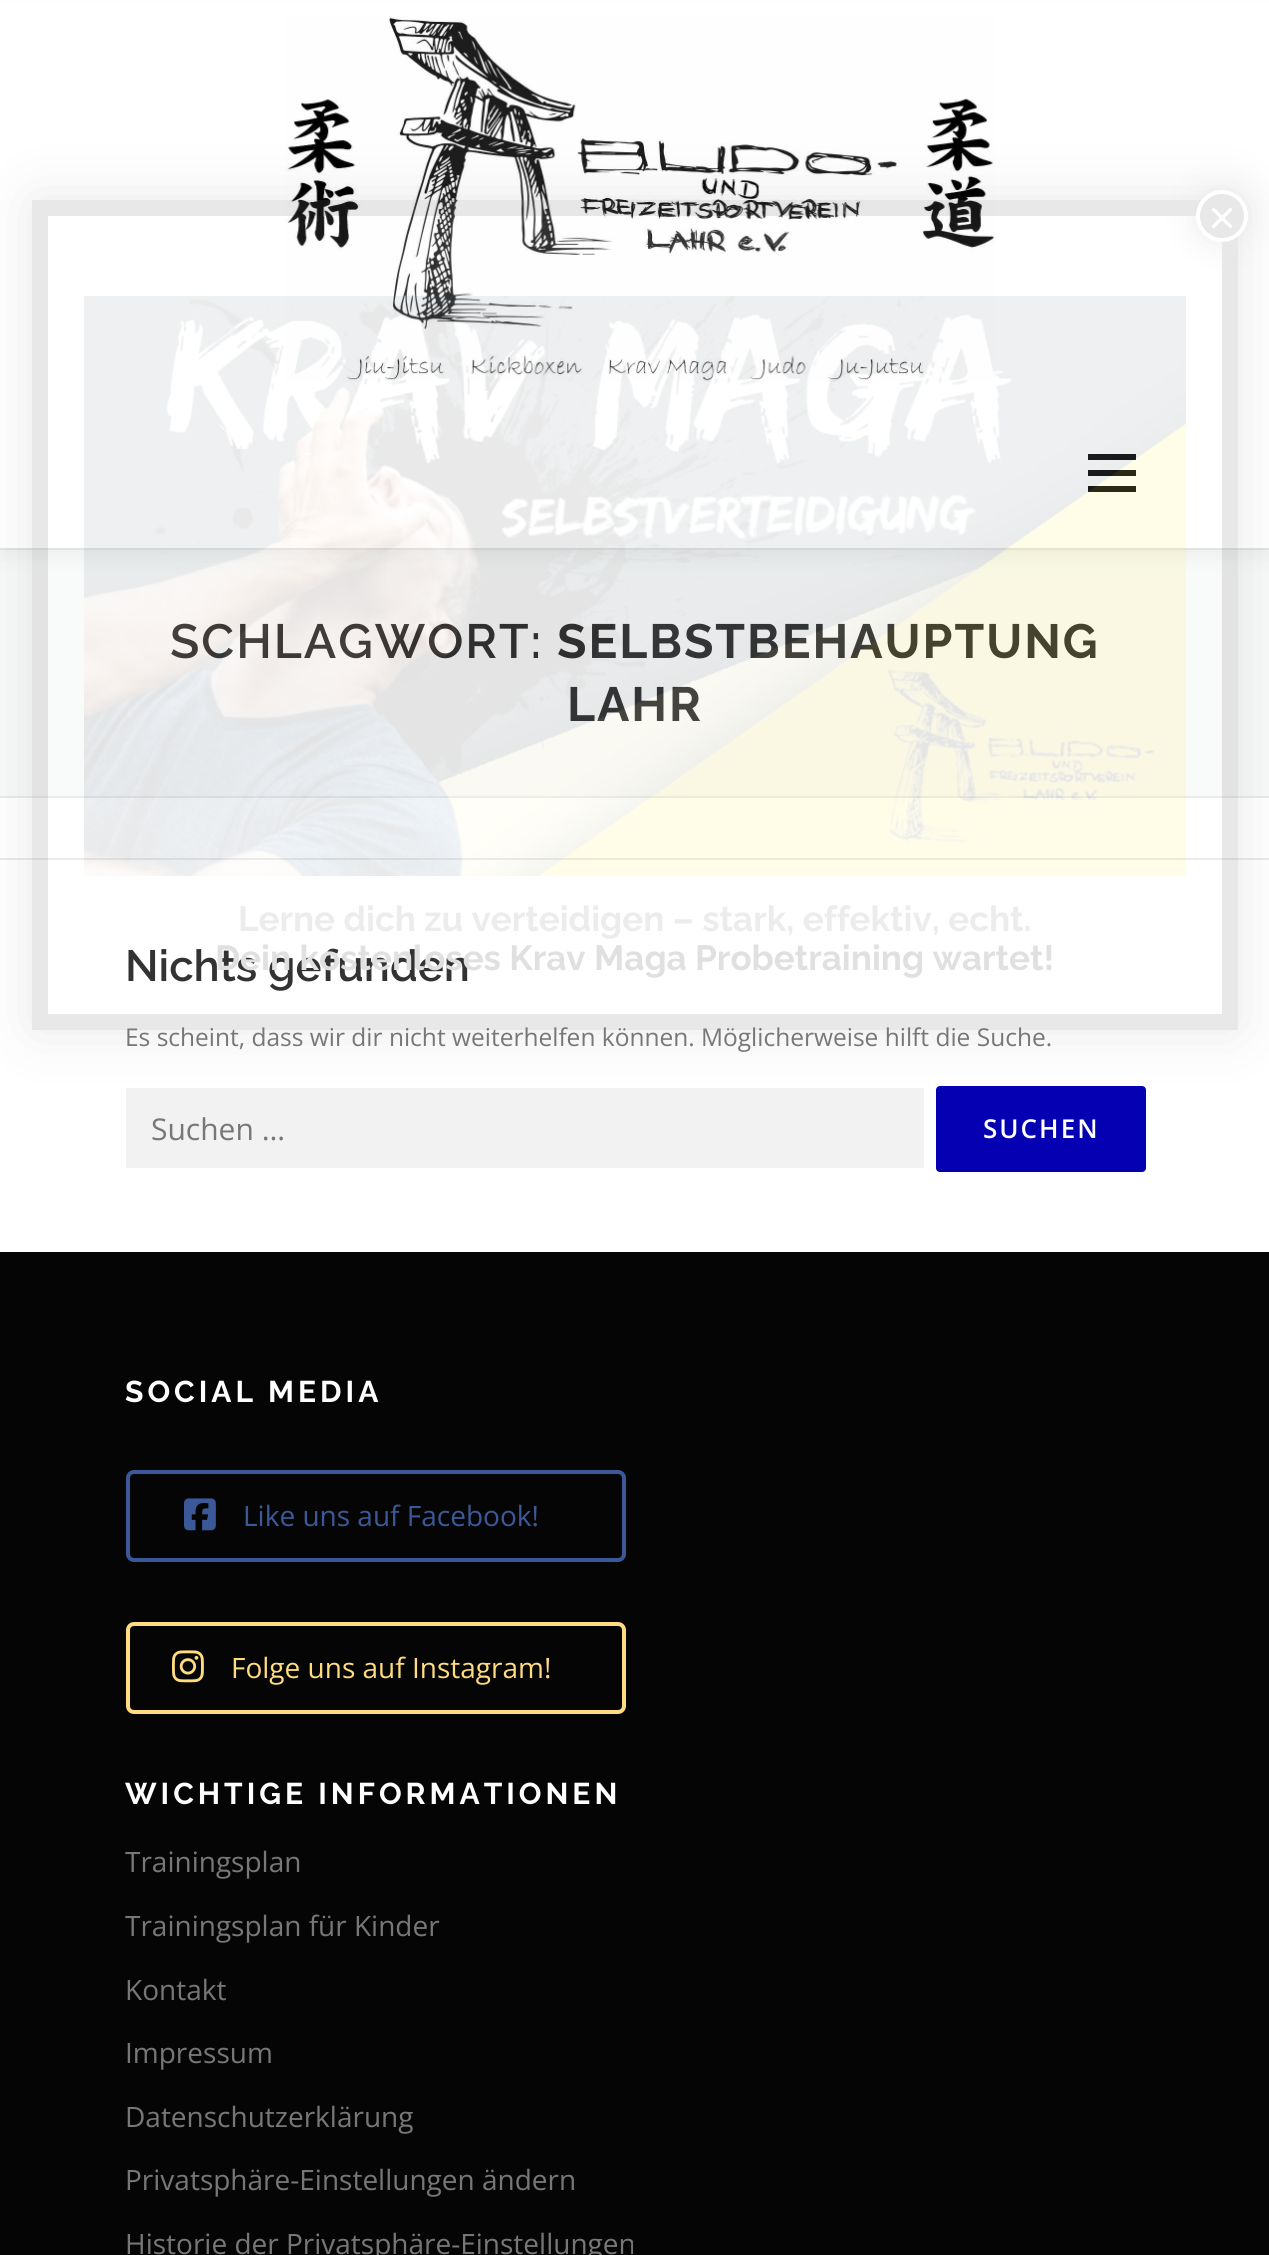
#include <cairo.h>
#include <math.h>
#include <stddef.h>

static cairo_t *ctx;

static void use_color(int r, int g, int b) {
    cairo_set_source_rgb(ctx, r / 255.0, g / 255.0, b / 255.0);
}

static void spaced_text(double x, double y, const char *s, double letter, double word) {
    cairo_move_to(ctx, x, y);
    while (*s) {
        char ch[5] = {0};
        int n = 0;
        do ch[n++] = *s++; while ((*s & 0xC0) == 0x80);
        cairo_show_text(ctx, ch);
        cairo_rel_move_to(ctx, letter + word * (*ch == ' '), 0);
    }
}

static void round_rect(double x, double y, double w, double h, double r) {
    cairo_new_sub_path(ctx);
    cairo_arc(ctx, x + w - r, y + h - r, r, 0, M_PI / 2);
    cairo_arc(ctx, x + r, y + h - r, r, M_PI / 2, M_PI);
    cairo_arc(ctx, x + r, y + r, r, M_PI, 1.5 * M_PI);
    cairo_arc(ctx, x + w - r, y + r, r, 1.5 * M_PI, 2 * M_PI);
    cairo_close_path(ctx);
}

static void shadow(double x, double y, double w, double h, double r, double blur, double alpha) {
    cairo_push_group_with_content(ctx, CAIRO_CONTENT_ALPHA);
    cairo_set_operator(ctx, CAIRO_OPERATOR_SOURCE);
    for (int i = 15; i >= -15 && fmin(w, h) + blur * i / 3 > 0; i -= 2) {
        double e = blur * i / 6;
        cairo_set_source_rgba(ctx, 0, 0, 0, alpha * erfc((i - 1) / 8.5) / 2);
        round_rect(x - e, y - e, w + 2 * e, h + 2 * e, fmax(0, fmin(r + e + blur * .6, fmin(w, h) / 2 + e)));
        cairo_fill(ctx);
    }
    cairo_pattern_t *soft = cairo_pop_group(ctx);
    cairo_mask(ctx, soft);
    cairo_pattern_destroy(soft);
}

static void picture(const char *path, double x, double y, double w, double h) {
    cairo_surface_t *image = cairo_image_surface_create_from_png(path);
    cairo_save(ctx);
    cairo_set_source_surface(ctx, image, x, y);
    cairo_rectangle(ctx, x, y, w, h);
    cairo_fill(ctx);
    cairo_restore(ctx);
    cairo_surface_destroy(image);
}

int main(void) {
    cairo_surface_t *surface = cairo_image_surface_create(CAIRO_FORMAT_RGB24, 1269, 2255);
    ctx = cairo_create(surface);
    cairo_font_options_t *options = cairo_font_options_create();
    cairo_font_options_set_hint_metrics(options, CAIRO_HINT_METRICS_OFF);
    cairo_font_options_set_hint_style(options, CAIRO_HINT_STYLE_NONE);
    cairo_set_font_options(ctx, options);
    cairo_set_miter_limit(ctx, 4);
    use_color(255, 255, 255);
    cairo_paint(ctx);
    use_color(248, 249, 249);
    cairo_rectangle(ctx, 0, 550, 1269, 246);
    cairo_fill(ctx);
    use_color(233, 233, 233);
    cairo_rectangle(ctx, 0, 548, 1269, 2);
    cairo_fill(ctx);
    use_color(50, 50, 50);
    shadow(0, 10, 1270, 548, 0, 10, 0.06);
    use_color(255, 255, 255);
    cairo_rectangle(ctx, 0, 2, 1269, 546);
    cairo_fill(ctx);
    picture("img2.png", 285, 16, 710, 366);
    use_color(0, 0, 0);
    cairo_rectangle(ctx, 1088, 470, 48, 6);
    cairo_fill(ctx);
    cairo_rectangle(ctx, 1088, 454, 48, 6);
    cairo_fill(ctx);
    cairo_rectangle(ctx, 1088, 486, 48, 6);
    cairo_fill(ctx);
    use_color(233, 233, 233);
    cairo_rectangle(ctx, 0, 796, 1269, 2);
    cairo_fill(ctx);
    cairo_rectangle(ctx, 0, 858, 1269, 2);
    cairo_fill(ctx);
    use_color(242, 242, 242);
    cairo_rectangle(ctx, 126, 1088, 798, 80);
    cairo_fill(ctx);
    use_color(5, 0, 178);
    round_rect(936, 1086, 210, 86, 4);
    cairo_fill(ctx);
    cairo_save(ctx);
    cairo_set_fill_rule(ctx, CAIRO_FILL_RULE_EVEN_ODD);
    cairo_new_path(ctx);
    cairo_move_to(ctx, 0, 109);
    cairo_line_to(ctx, 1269, 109);
    cairo_line_to(ctx, 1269, 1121);
    cairo_line_to(ctx, 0, 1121);
    cairo_close_path(ctx);
    cairo_move_to(ctx, 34, 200);
    cairo_line_to(ctx, 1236, 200);
    cairo_curve_to(ctx, 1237, 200, 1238, 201, 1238, 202);
    cairo_line_to(ctx, 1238, 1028);
    cairo_curve_to(ctx, 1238, 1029, 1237, 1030, 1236, 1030);
    cairo_line_to(ctx, 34, 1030);
    cairo_curve_to(ctx, 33, 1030, 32, 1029, 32, 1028);
    cairo_line_to(ctx, 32, 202);
    cairo_curve_to(ctx, 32, 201, 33, 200, 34, 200);
    cairo_close_path(ctx);
    cairo_clip(ctx);
    use_color(2, 2, 2);
    shadow(32, 200, 1206, 830, 2, 30, 0.09);
    cairo_restore(ctx);
    cairo_set_source_rgba(ctx, 1, 1, 1, 0.09);
    round_rect(32, 200, 1206, 830, 2);
    cairo_fill(ctx);
    cairo_new_path(ctx);
    cairo_move_to(ctx, 40, 208);
    cairo_line_to(ctx, 1230, 208);
    cairo_line_to(ctx, 1230, 1022);
    cairo_line_to(ctx, 40, 1022);
    cairo_close_path(ctx);
    cairo_set_source_rgba(ctx, 0, 0, 0, 0.09);
    cairo_set_line_width(ctx, 16);
    cairo_stroke(ctx);
    use_color(232, 232, 232);
    shadow(1194, 188, 56, 56, 28, 15, 0.75);
    use_color(232, 232, 232);
    cairo_arc(ctx, 1222, 216, 24, 0, 2 * M_PI);
    cairo_fill_preserve(ctx);
    use_color(255, 255, 255);
    cairo_set_line_width(ctx, 4);
    cairo_stroke(ctx);
    cairo_select_font_face(ctx, "Liberation Sans", CAIRO_FONT_SLANT_NORMAL, CAIRO_FONT_WEIGHT_NORMAL);
    cairo_set_font_size(ctx, 48);
    cairo_move_to(ctx, 1208, 234);
    cairo_show_text(ctx, "×");
    cairo_select_font_face(ctx, "Raleway SemiBold", CAIRO_FONT_SLANT_NORMAL, CAIRO_FONT_WEIGHT_NORMAL);
    use_color(51, 51, 51);
    spaced_text(170, 658, "SCHLAGWORT:", 2, 0);
    cairo_select_font_face(ctx, "Raleway", CAIRO_FONT_SLANT_NORMAL, CAIRO_FONT_WEIGHT_BOLD);
    spaced_text(557, 658, "SELBSTBEHAUPTUNG", 2, 0);
    spaced_text(567, 721, "LAHR", 2, 0);
    picture("img1.png", 84, 296, 1102, 580);
    cairo_set_font_size(ctx, 35);
    use_color(236, 236, 236);
    cairo_move_to(ctx, 238, 931);
    cairo_show_text(ctx, "Lerne dich zu verteidigen – stark, effektiv, echt.");
    cairo_select_font_face(ctx, "Raleway SemiBold", CAIRO_FONT_SLANT_NORMAL, CAIRO_FONT_WEIGHT_NORMAL);
    cairo_set_font_size(ctx, 43.75);
    use_color(51, 51, 51);
    cairo_move_to(ctx, 125, 981);
    cairo_show_text(ctx, "Nichts gefunden");
    cairo_select_font_face(ctx, "Raleway", CAIRO_FONT_SLANT_NORMAL, CAIRO_FONT_WEIGHT_BOLD);
    cairo_set_font_size(ctx, 35);
    use_color(224, 224, 224);
    cairo_move_to(ctx, 215, 970);
    cairo_show_text(ctx, "Dein kostenloses Krav Maga Probetraining wartet!");
    cairo_select_font_face(ctx, "Open Sans", CAIRO_FONT_SLANT_NORMAL, CAIRO_FONT_WEIGHT_NORMAL);
    cairo_set_font_size(ctx, 24.5);
    use_color(119, 119, 119);
    cairo_move_to(ctx, 125, 1046);
    cairo_show_text(ctx, "Es scheint, dass wir dir nicht weiterhelfen können. Möglicherweise hilft die Suche.");
    cairo_set_font_size(ctx, 30);
    cairo_move_to(ctx, 151, 1140);
    cairo_show_text(ctx, "Suchen …");
    cairo_set_source_rgba(ctx, 0, 0, 0, 0.1);
    cairo_new_path(ctx);
    cairo_move_to(ctx, 936, 1166);
    cairo_curve_to(ctx, 936, 1169, 936, 1171, 939, 1172);
    cairo_line_to(ctx, 1143, 1172);
    cairo_curve_to(ctx, 1146, 1171, 1146, 1169, 1146, 1166);
    cairo_curve_to(ctx, 1146, 1168, 1144, 1170, 1142, 1170);
    cairo_line_to(ctx, 940, 1170);
    cairo_curve_to(ctx, 938, 1170, 936, 1168, 936, 1166);
    cairo_close_path(ctx);
    cairo_fill(ctx);
    cairo_select_font_face(ctx, "Open Sans SemiBold", CAIRO_FONT_SLANT_NORMAL, CAIRO_FONT_WEIGHT_NORMAL);
    cairo_set_font_size(ctx, 26);
    use_color(255, 255, 255);
    spaced_text(983, 1138, "SUCHEN", 2, 0);
    use_color(5, 5, 5);
    cairo_rectangle(ctx, 0, 1252, 1269, 1003);
    cairo_fill(ctx);
    cairo_select_font_face(ctx, "Raleway", CAIRO_FONT_SLANT_NORMAL, CAIRO_FONT_WEIGHT_BOLD);
    cairo_set_font_size(ctx, 30);
    use_color(255, 255, 255);
    spaced_text(125, 1402, "SOCIAL MEDIA", 4, 0);
    round_rect(128, 1472, 496, 88, 6);
    use_color(59, 89, 152);
    cairo_stroke(ctx);
    picture("img3.png", 184, 1498, 32, 33);
    cairo_select_font_face(ctx, "Open Sans", CAIRO_FONT_SLANT_NORMAL, CAIRO_FONT_WEIGHT_NORMAL);
    cairo_set_font_size(ctx, 28);
    cairo_move_to(ctx, 243, 1526);
    cairo_show_text(ctx, "Like uns auf Facebook!");
    round_rect(128, 1624, 496, 88, 6);
    use_color(255, 220, 125);
    cairo_stroke(ctx);
    picture("img4.png", 172, 1650, 32, 33);
    cairo_move_to(ctx, 231, 1678);
    cairo_show_text(ctx, "Folge uns auf Instagram!");
    cairo_select_font_face(ctx, "Raleway", CAIRO_FONT_SLANT_NORMAL, CAIRO_FONT_WEIGHT_BOLD);
    cairo_set_font_size(ctx, 30);
    use_color(255, 255, 255);
    spaced_text(125, 1804, "WICHTIGE INFORMATIONEN", 4, 0);
    cairo_select_font_face(ctx, "Open Sans", CAIRO_FONT_SLANT_NORMAL, CAIRO_FONT_WEIGHT_NORMAL);
    cairo_set_font_size(ctx, 28);
    use_color(119, 119, 119);
    cairo_move_to(ctx, 125, 1872);
    cairo_show_text(ctx, "Trainingsplan");
    cairo_move_to(ctx, 125, 1936);
    cairo_show_text(ctx, "Trainingsplan für Kinder");
    cairo_move_to(ctx, 125, 2000);
    cairo_show_text(ctx, "Kontakt");
    cairo_move_to(ctx, 125, 2063);
    cairo_show_text(ctx, "Impressum");
    cairo_move_to(ctx, 125, 2127);
    cairo_show_text(ctx, "Datenschutzerklärung");
    cairo_move_to(ctx, 125, 2190);
    cairo_show_text(ctx, "Privatsphäre-Einstellungen ändern");
    cairo_move_to(ctx, 125, 2254);
    cairo_show_text(ctx, "Historie der Privatsphäre-Einstellungen");
    cairo_surface_write_to_png(surface, "result.png");
    cairo_font_options_destroy(options);
    cairo_destroy(ctx);
    cairo_surface_destroy(surface);
    return 0;
}
